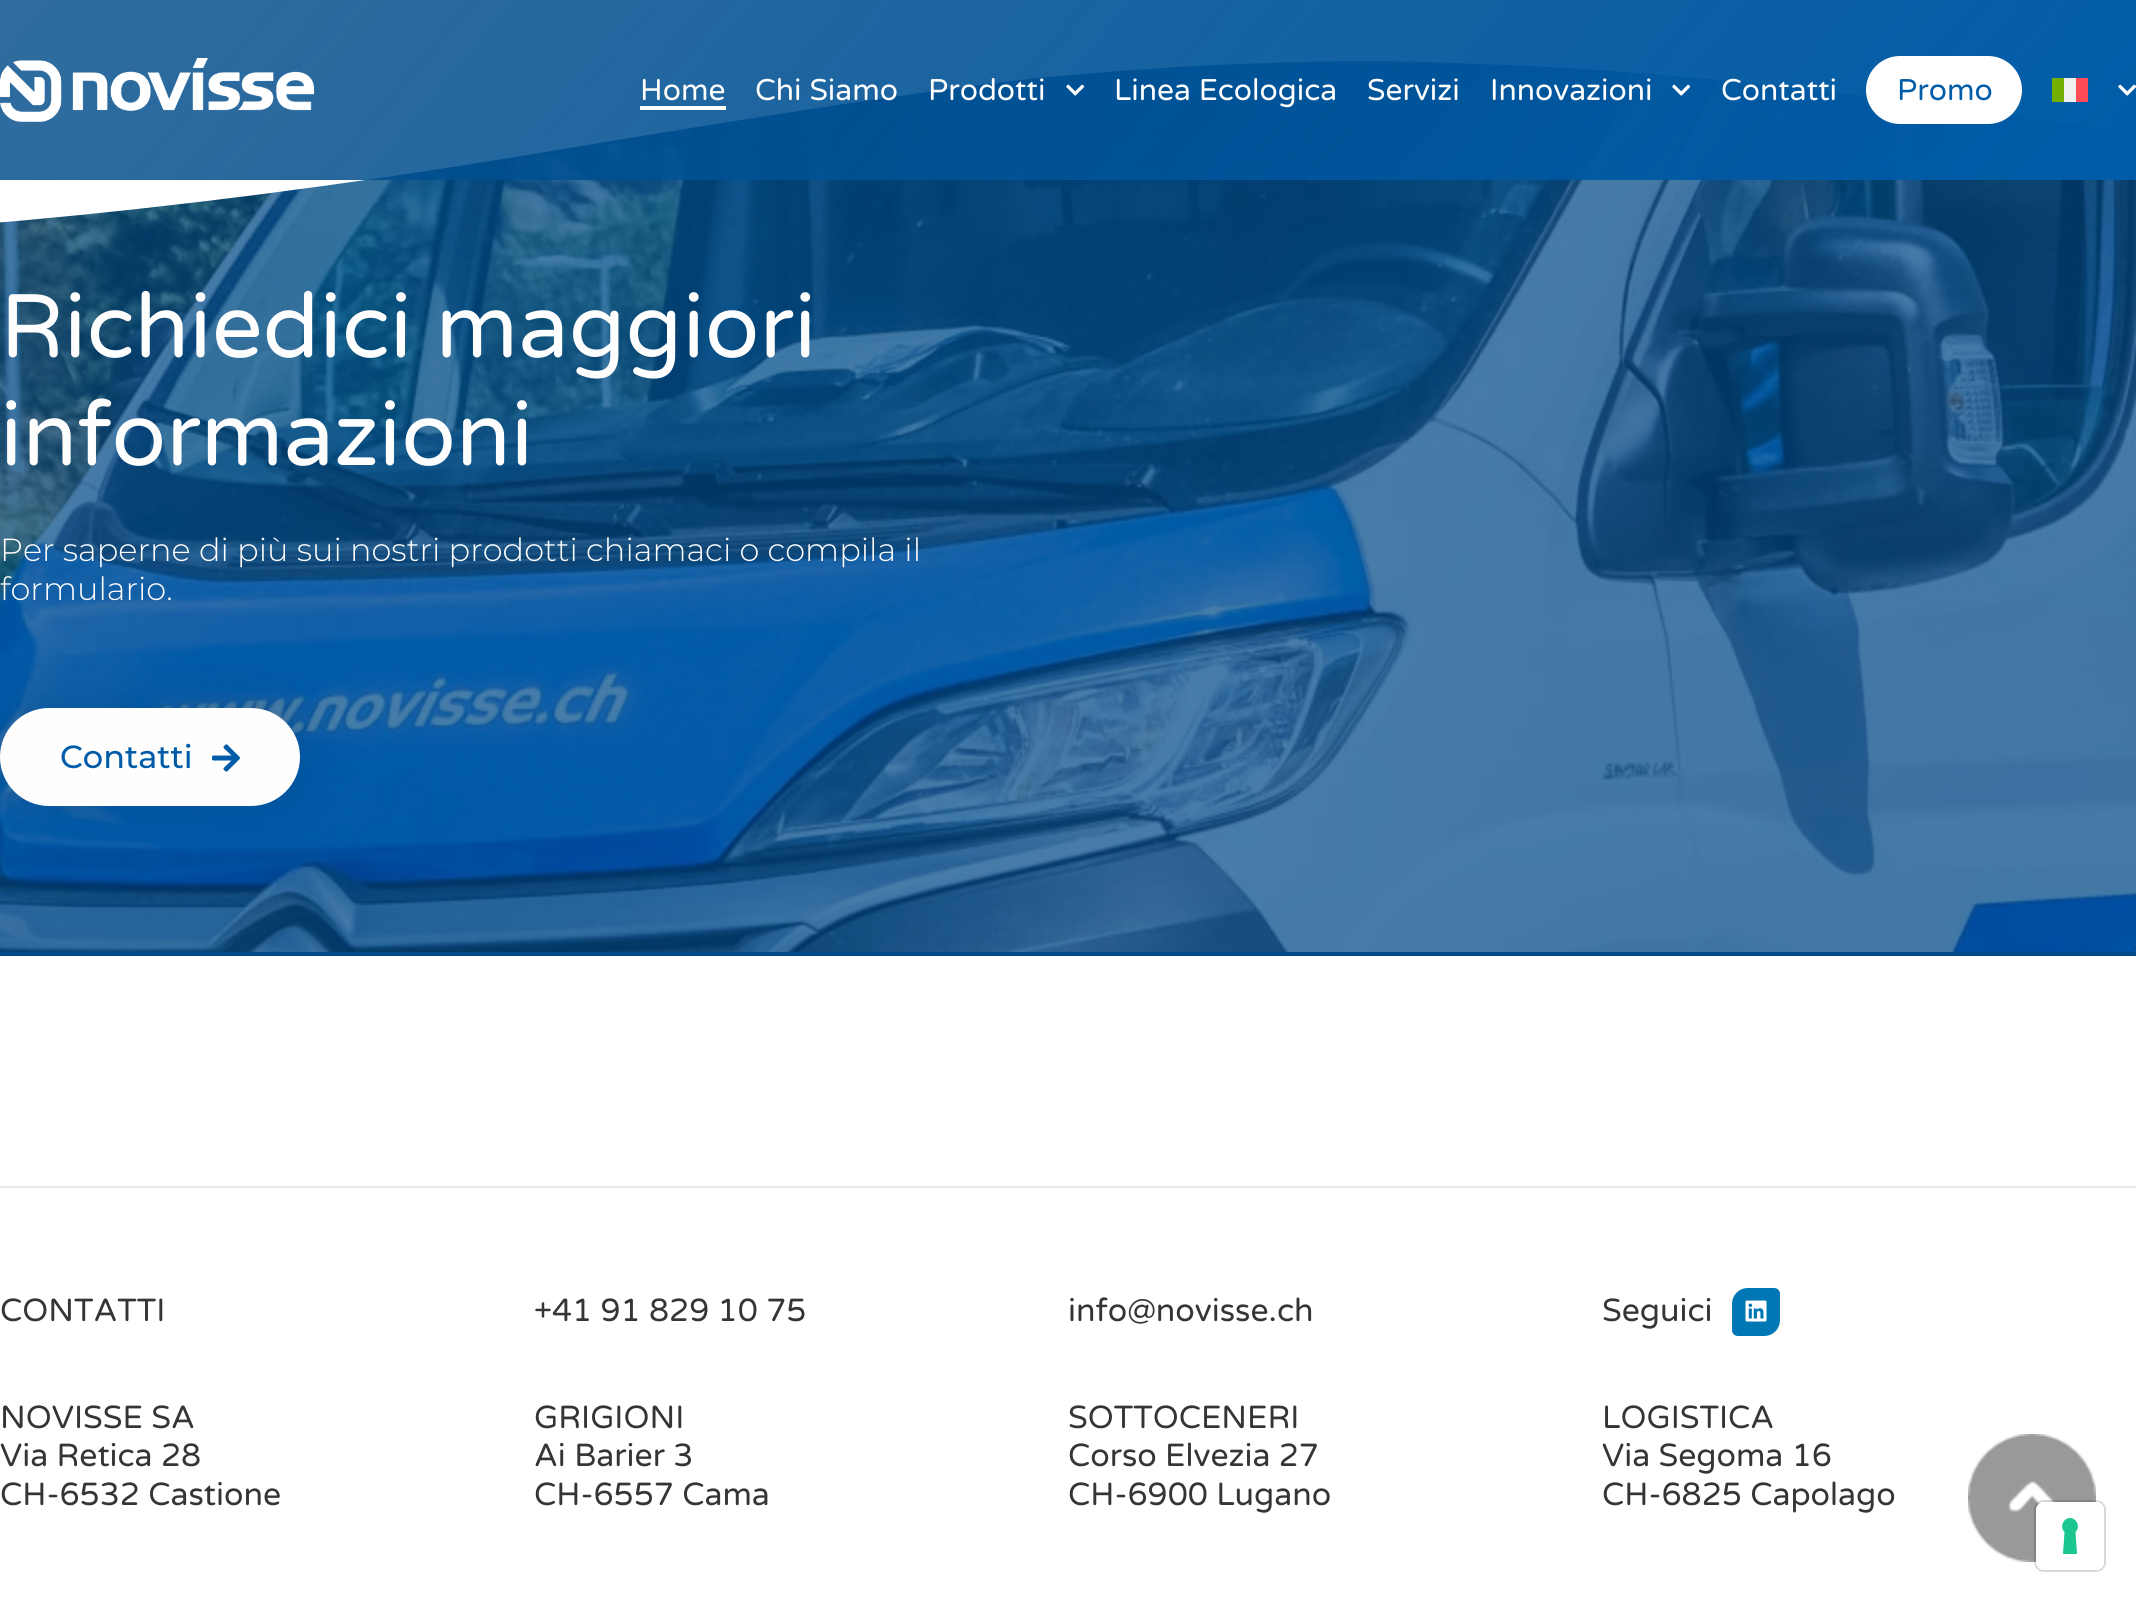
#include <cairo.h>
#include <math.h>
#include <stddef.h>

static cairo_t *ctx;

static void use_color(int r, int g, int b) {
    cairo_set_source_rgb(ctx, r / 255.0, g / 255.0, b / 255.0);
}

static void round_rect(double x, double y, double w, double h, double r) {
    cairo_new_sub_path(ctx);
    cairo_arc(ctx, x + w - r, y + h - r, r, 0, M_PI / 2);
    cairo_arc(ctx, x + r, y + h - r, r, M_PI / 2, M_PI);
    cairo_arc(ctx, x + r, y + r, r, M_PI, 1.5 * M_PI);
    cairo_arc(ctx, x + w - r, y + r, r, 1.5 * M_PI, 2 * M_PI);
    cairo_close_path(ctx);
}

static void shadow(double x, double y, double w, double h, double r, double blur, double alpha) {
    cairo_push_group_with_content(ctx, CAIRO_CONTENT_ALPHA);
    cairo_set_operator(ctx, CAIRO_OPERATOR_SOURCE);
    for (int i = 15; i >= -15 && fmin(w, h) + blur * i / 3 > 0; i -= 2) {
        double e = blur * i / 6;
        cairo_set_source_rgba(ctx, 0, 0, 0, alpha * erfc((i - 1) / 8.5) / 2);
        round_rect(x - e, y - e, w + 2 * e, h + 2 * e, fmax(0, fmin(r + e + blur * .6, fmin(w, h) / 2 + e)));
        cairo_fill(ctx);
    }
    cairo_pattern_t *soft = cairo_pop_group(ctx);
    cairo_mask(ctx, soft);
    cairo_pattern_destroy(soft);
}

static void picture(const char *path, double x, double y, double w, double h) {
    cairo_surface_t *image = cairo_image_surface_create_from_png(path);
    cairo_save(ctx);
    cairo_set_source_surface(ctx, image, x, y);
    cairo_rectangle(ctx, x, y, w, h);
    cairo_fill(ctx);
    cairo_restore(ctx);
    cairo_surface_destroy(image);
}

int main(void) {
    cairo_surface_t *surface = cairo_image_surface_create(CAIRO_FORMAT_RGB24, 2136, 1602);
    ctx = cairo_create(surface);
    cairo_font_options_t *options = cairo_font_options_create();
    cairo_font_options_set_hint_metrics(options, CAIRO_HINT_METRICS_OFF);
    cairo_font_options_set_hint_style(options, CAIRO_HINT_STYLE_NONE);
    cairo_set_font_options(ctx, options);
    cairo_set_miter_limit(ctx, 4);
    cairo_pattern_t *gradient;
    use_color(255, 255, 255);
    cairo_paint(ctx);
    picture("img5.png", 0, 61, 2136, 891);
    use_color(255, 255, 255);
    cairo_new_path(ctx);
    cairo_move_to(ctx, 1452, 63);
    cairo_curve_to(ctx, 1341, 58, 1199, 64, 1081, 74);
    cairo_curve_to(ctx, 965, 83, 732, 121, 587, 145);
    cairo_curve_to(ctx, 214, 209, -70, 234, -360, 244);
    cairo_curve_to(ctx, -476, 249, -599, 251, -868, 239);
    cairo_curve_to(ctx, -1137, 227, -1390, 188, -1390, 188);
    cairo_line_to(ctx, -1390, 50);
    cairo_line_to(ctx, 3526, 50);
    cairo_line_to(ctx, 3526, 111);
    cairo_curve_to(ctx, 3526, 111, 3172, 176, 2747, 172);
    cairo_curve_to(ctx, 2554, 170, 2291, 158, 2088, 127);
    cairo_curve_to(ctx, 1984, 111, 1832, 90, 1697, 78);
    cairo_curve_to(ctx, 1563, 66, 1503, 65, 1452, 63);
    cairo_close_path(ctx);
    cairo_fill(ctx);
    gradient = cairo_pattern_create_linear(397, -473, 1739, 653);
    cairo_pattern_add_color_stop_rgba(gradient, 0, 0, 0.29, 0.529, 0.81);
    cairo_pattern_add_color_stop_rgba(gradient, 1, 0, 0.361, 0.659, 1);
    cairo_set_source(ctx, gradient);
    cairo_pattern_destroy(gradient);
    cairo_rectangle(ctx, 0, 0, 2136, 180);
    cairo_fill(ctx);
    picture("img1.png", 0, 58, 315, 64);
    cairo_select_font_face(ctx, "Varela Round", CAIRO_FONT_SLANT_NORMAL, CAIRO_FONT_WEIGHT_NORMAL);
    cairo_set_font_size(ctx, 30);
    use_color(255, 254, 254);
    cairo_move_to(ctx, 640, 100);
    cairo_show_text(ctx, "Home");
    cairo_rectangle(ctx, 640, 106, 86, 4);
    cairo_fill(ctx);
    cairo_move_to(ctx, 755, 100);
    cairo_show_text(ctx, "Chi Siamo");
    cairo_move_to(ctx, 928, 100);
    cairo_show_text(ctx, "Prodotti");
    picture("img2.png", 1066, 84, 19, 12);
    cairo_move_to(ctx, 1114, 100);
    cairo_show_text(ctx, "Linea Ecologica");
    cairo_move_to(ctx, 1367, 100);
    cairo_show_text(ctx, "Servizi");
    cairo_move_to(ctx, 1490, 100);
    cairo_show_text(ctx, "Innovazioni");
    picture("img3.png", 1672, 84, 19, 12);
    cairo_move_to(ctx, 1721, 100);
    cairo_show_text(ctx, "Contatti");
    use_color(255, 255, 255);
    round_rect(1866, 56, 156, 68, 34);
    cairo_fill(ctx);
    use_color(0, 92, 168);
    cairo_move_to(ctx, 1897, 100);
    cairo_show_text(ctx, "Promo");
    use_color(240, 240, 240);
    cairo_rectangle(ctx, 2064, 78, 12, 24);
    cairo_fill(ctx);
    use_color(255, 75, 85);
    cairo_rectangle(ctx, 2076, 78, 12, 24);
    cairo_fill(ctx);
    use_color(115, 175, 0);
    cairo_rectangle(ctx, 2052, 78, 12, 24);
    cairo_fill(ctx);
    picture("img4.png", 2118, 84, 18, 12);
    cairo_set_font_size(ctx, 90);
    use_color(255, 254, 254);
    cairo_move_to(ctx, 0, 357);
    cairo_show_text(ctx, "Richiedici maggiori");
    cairo_move_to(ctx, 0, 465);
    cairo_show_text(ctx, "informazioni");
    cairo_select_font_face(ctx, "Montserrat Light", CAIRO_FONT_SLANT_NORMAL, CAIRO_FONT_WEIGHT_NORMAL);
    cairo_set_font_size(ctx, 32);
    cairo_move_to(ctx, 0, 561);
    cairo_show_text(ctx, "Per saperne di più sui nostri prodotti chiamaci o compila il");
    cairo_move_to(ctx, 0, 600);
    cairo_show_text(ctx, "formulario.");
    use_color(0, 0, 0);
    shadow(0, 708, 300, 98, 49, 30, 0.1);
    use_color(255, 254, 254);
    round_rect(0, 708, 300, 98, 49);
    cairo_fill(ctx);
    cairo_select_font_face(ctx, "Montserrat Medium", CAIRO_FONT_SLANT_NORMAL, CAIRO_FONT_WEIGHT_NORMAL);
    use_color(0, 92, 168);
    cairo_move_to(ctx, 60, 768);
    cairo_show_text(ctx, "Contatti");
    picture("img6.png", 212, 744, 28, 28);
    use_color(0, 74, 135);
    cairo_rectangle(ctx, 0, 952, 2136, 4);
    cairo_fill(ctx);
    use_color(233, 233, 233);
    cairo_rectangle(ctx, 0, 1186, 2136, 2);
    cairo_fill(ctx);
    cairo_select_font_face(ctx, "Varela Round", CAIRO_FONT_SLANT_NORMAL, CAIRO_FONT_WEIGHT_NORMAL);
    use_color(53, 53, 53);
    cairo_move_to(ctx, 0, 1321);
    cairo_show_text(ctx, "CONTATTI");
    cairo_move_to(ctx, 534, 1321);
    cairo_show_text(ctx, "+41 91 829 10 75");
    cairo_move_to(ctx, 1068, 1321);
    cairo_show_text(ctx, "info@novisse.ch");
    cairo_move_to(ctx, 1602, 1321);
    cairo_show_text(ctx, "Seguici");
    use_color(0, 119, 181);
    cairo_new_path(ctx);
    cairo_move_to(ctx, 1748, 1288);
    cairo_line_to(ctx, 1774, 1288);
    cairo_curve_to(ctx, 1777.5, 1288, 1780, 1290.5, 1780, 1294);
    cairo_line_to(ctx, 1780, 1320);
    cairo_curve_to(ctx, 1780, 1329, 1773, 1336, 1764, 1336);
    cairo_line_to(ctx, 1738, 1336);
    cairo_curve_to(ctx, 1734.5, 1336, 1732, 1333.5, 1732, 1330);
    cairo_line_to(ctx, 1732, 1304);
    cairo_curve_to(ctx, 1732, 1295, 1739, 1288, 1748, 1288);
    cairo_close_path(ctx);
    cairo_fill(ctx);
    picture("img7.png", 1745, 1300, 22, 22);
    use_color(53, 53, 53);
    cairo_move_to(ctx, 0, 1428);
    cairo_show_text(ctx, "NOVISSE SA");
    cairo_move_to(ctx, 0, 1466);
    cairo_show_text(ctx, "Via Retica 28");
    cairo_move_to(ctx, 0, 1505);
    cairo_show_text(ctx, "CH-6532 Castione");
    cairo_move_to(ctx, 534, 1428);
    cairo_show_text(ctx, "GRIGIONI");
    cairo_move_to(ctx, 534, 1466);
    cairo_show_text(ctx, "Ai Barier 3");
    cairo_move_to(ctx, 534, 1505);
    cairo_show_text(ctx, "CH-6557 Cama");
    cairo_move_to(ctx, 1068, 1428);
    cairo_show_text(ctx, "SOTTOCENERI");
    cairo_move_to(ctx, 1068, 1466);
    cairo_show_text(ctx, "Corso Elvezia 27");
    cairo_move_to(ctx, 1068, 1505);
    cairo_show_text(ctx, "CH-6900 Lugano");
    cairo_move_to(ctx, 1602, 1428);
    cairo_show_text(ctx, "LOGISTICA");
    cairo_move_to(ctx, 1602, 1466);
    cairo_show_text(ctx, "Via Segoma 16");
    cairo_move_to(ctx, 1602, 1505);
    cairo_show_text(ctx, "CH-6825 Capolago");
    picture("img8.png", 1968, 1434, 128, 128);
    round_rect(2035, 1501, 70, 70, 9);
    cairo_set_source_rgba(ctx, 0, 0, 0, 0.15);
    cairo_stroke(ctx);
    use_color(255, 255, 255);
    round_rect(2036, 1502, 68, 68, 8);
    cairo_fill(ctx);
    use_color(28, 198, 145);
    cairo_set_fill_rule(ctx, CAIRO_FILL_RULE_EVEN_ODD);
    cairo_new_path(ctx);
    cairo_move_to(ctx, 2070, 1518);
    cairo_curve_to(ctx, 2077, 1518, 2080.5, 1527.5, 2075.5, 1532);
    cairo_line_to(ctx, 2077, 1554);
    cairo_line_to(ctx, 2063, 1554);
    cairo_line_to(ctx, 2064.5, 1532);
    cairo_curve_to(ctx, 2059.5, 1527.5, 2063, 1518, 2070, 1518);
    cairo_close_path(ctx);
    cairo_fill(ctx);
    cairo_surface_write_to_png(surface, "result.png");
    cairo_font_options_destroy(options);
    cairo_destroy(ctx);
    cairo_surface_destroy(surface);
    return 0;
}
